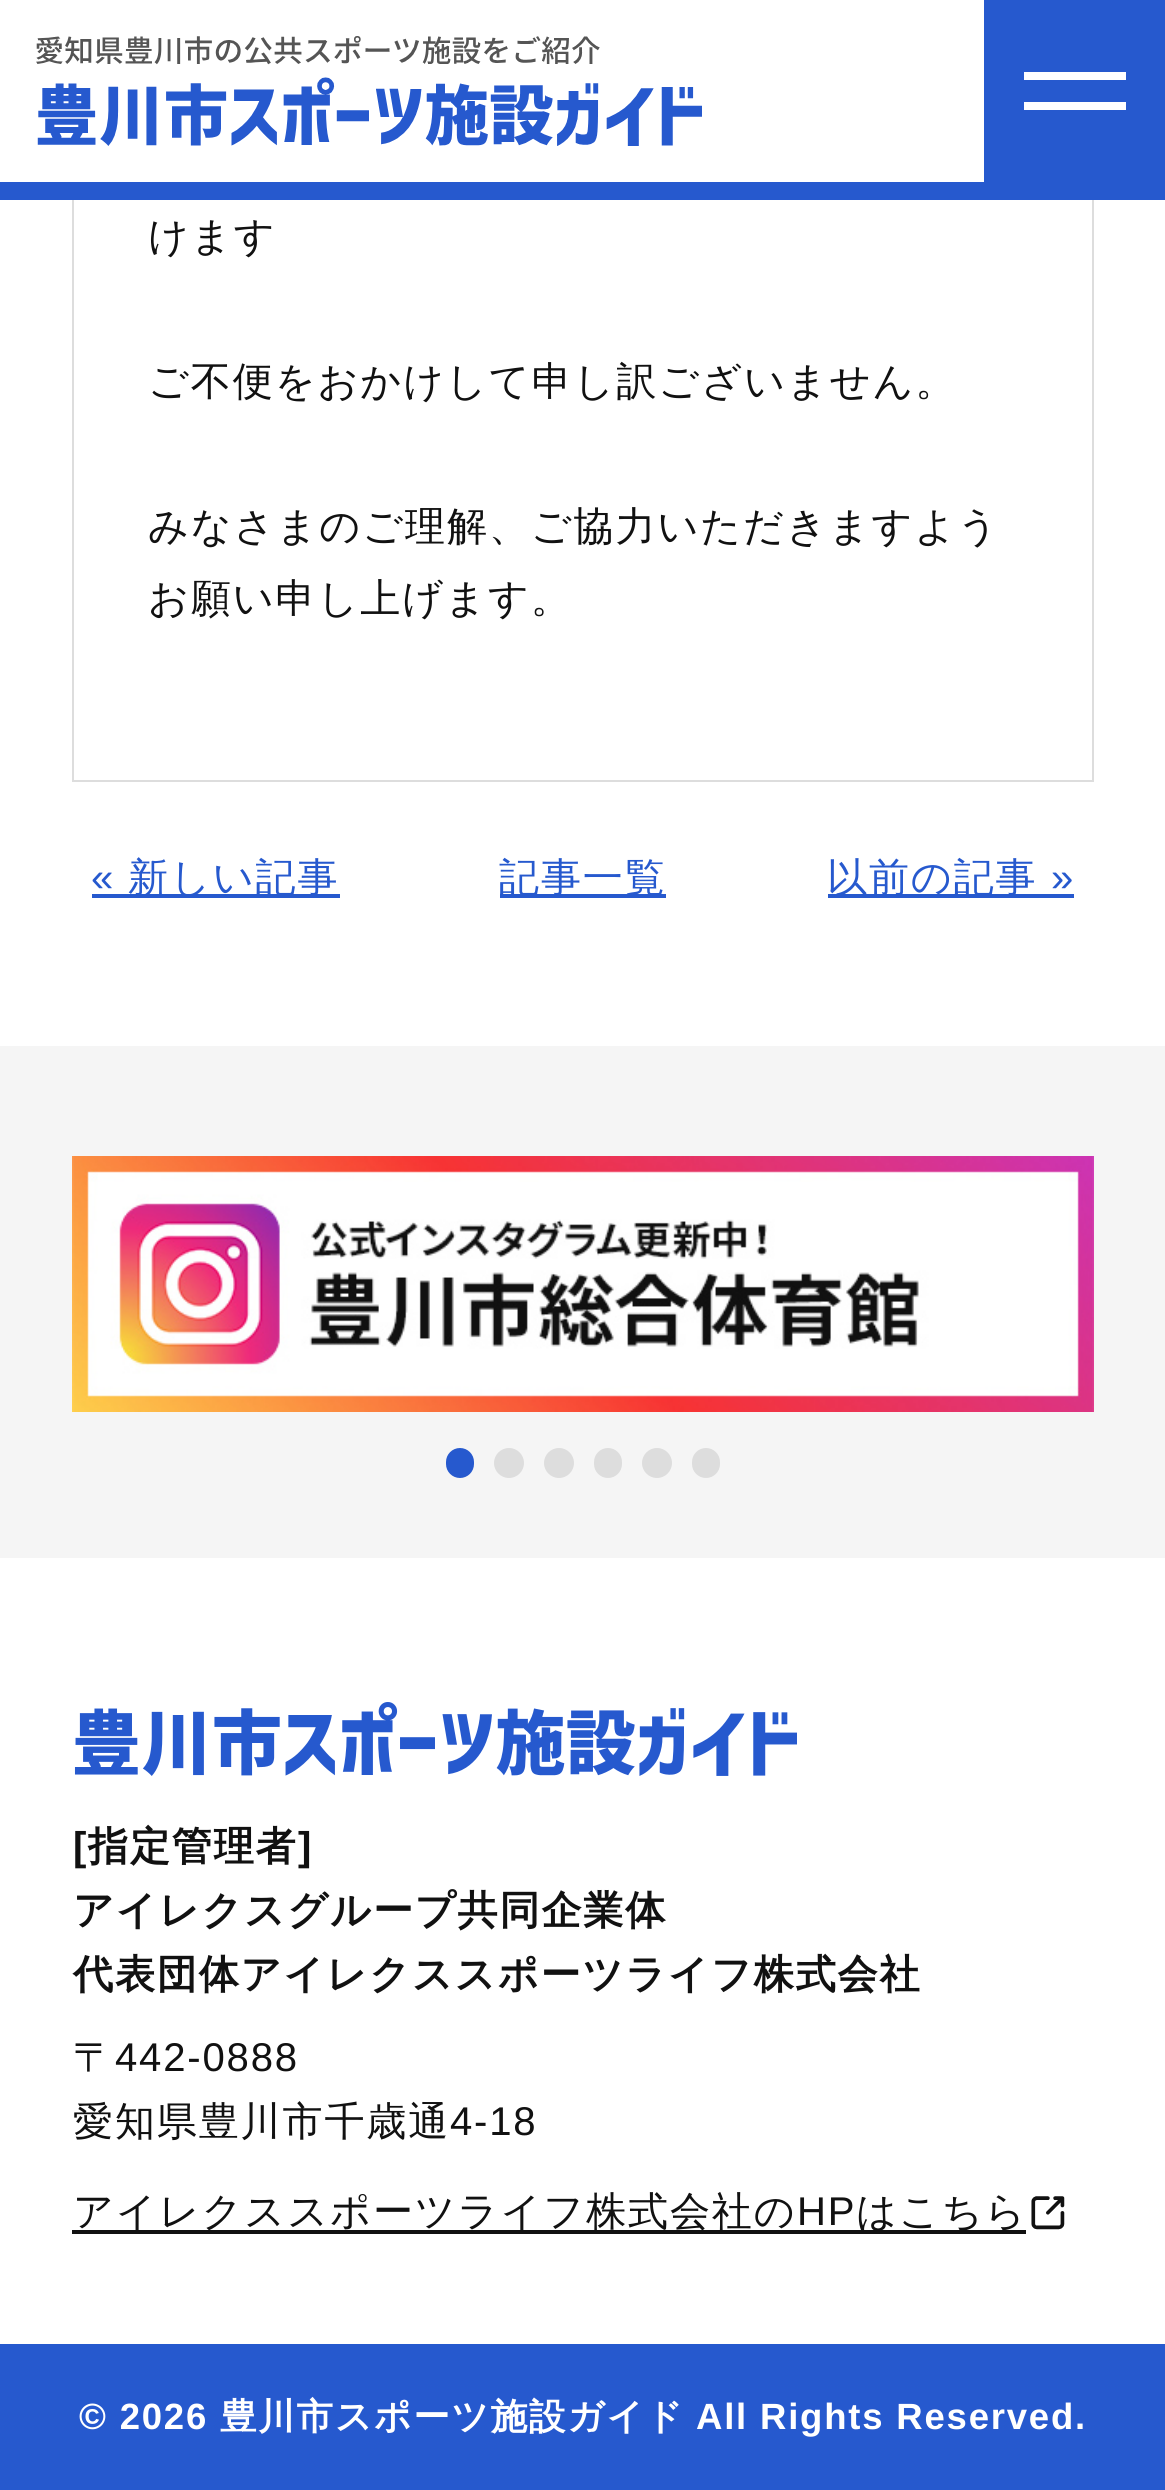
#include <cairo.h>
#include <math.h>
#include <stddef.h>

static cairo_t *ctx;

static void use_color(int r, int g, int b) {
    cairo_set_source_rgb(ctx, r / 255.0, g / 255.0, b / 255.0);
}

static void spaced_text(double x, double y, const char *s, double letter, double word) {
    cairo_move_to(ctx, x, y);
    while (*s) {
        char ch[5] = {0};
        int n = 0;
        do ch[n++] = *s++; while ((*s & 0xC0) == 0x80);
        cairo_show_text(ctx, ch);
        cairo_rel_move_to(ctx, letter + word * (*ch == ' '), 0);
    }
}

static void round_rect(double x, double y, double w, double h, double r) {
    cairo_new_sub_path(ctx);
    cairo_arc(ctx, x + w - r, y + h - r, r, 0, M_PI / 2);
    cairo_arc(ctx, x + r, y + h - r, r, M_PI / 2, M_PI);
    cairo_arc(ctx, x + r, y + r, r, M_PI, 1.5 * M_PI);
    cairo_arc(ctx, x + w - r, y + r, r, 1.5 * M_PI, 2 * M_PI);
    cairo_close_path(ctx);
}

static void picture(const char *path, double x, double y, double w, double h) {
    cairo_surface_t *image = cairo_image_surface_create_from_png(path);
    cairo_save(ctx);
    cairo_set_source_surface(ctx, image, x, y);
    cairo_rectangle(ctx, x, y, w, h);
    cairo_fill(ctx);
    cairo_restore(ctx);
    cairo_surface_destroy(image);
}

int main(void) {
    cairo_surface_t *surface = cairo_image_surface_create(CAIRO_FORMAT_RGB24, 1165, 2490);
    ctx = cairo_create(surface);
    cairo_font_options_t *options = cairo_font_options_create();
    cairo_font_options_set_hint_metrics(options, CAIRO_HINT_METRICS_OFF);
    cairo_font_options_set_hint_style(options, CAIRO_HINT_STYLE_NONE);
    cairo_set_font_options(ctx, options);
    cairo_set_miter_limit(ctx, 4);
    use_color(255, 255, 255);
    cairo_paint(ctx);
    cairo_rectangle(ctx, 73, -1, 1020, 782);
    use_color(221, 221, 221);
    cairo_stroke(ctx);
    use_color(255, 255, 255);
    cairo_rectangle(ctx, 72, 0, 2, 182);
    cairo_fill(ctx);
    use_color(38, 89, 206);
    cairo_rectangle(ctx, 0, 182, 1165, 18);
    cairo_fill(ctx);
    picture("img1.png", 36, 36, 666, 110);
    cairo_rectangle(ctx, 984, 0, 181, 182);
    cairo_fill(ctx);
    use_color(255, 255, 255);
    cairo_rectangle(ctx, 1024, 72, 102, 8);
    cairo_fill(ctx);
    cairo_rectangle(ctx, 1024, 102, 102, 8);
    cairo_fill(ctx);
    cairo_select_font_face(ctx, "WenQuanYi Zen Hei Medium", CAIRO_FONT_SLANT_NORMAL, CAIRO_FONT_WEIGHT_NORMAL);
    cairo_set_font_size(ctx, 40.1);
    use_color(17, 17, 17);
    spaced_text(148, 250, "けます", 1.8, 0);
    spaced_text(148, 395, "ご不便をおかけして申し訳ございません。", 1.8, 0);
    spaced_text(148, 540, "みなさまのご理解、ご協力いただきますよう", 1.8, 0);
    spaced_text(148, 612, "お願い申し上げます。", 1.8, 0);
    cairo_select_font_face(ctx, "Liberation Sans", CAIRO_FONT_SLANT_NORMAL, CAIRO_FONT_WEIGHT_NORMAL);
    use_color(38, 89, 206);
    spaced_text(91, 891, "«", 1.8, 0);
    cairo_rectangle(ctx, 92, 894, 248, 4);
    cairo_fill(ctx);
    cairo_select_font_face(ctx, "WenQuanYi Zen Hei Medium", CAIRO_FONT_SLANT_NORMAL, CAIRO_FONT_WEIGHT_NORMAL);
    spaced_text(128, 891, "新しい記事", 1.8, 0);
    cairo_rectangle(ctx, 500, 894, 166, 4);
    cairo_fill(ctx);
    spaced_text(499, 891, "記事一覧", 1.8, 0);
    cairo_rectangle(ctx, 828, 894, 246, 4);
    cairo_fill(ctx);
    spaced_text(827, 891, "以前の記事", 1.8, 0);
    cairo_select_font_face(ctx, "Liberation Sans", CAIRO_FONT_SLANT_NORMAL, CAIRO_FONT_WEIGHT_NORMAL);
    spaced_text(1051, 891, "»", 1.8, 0);
    use_color(245, 245, 245);
    cairo_rectangle(ctx, 0, 1046, 1165, 512);
    cairo_fill(ctx);
    picture("img2.png", 72, 1156, 1022, 256);
    use_color(38, 89, 206);
    round_rect(446, 1448, 28, 30, 14);
    cairo_fill(ctx);
    use_color(221, 221, 221);
    cairo_arc(ctx, 509, 1463, 15, 0, 2 * M_PI);
    cairo_fill(ctx);
    cairo_arc(ctx, 559, 1463, 15, 0, 2 * M_PI);
    cairo_fill(ctx);
    round_rect(594, 1448, 28, 30, 14);
    cairo_fill(ctx);
    cairo_arc(ctx, 657, 1463, 15, 0, 2 * M_PI);
    cairo_fill(ctx);
    round_rect(692, 1448, 28, 30, 14);
    cairo_fill(ctx);
    picture("img3.png", 74, 1702, 723, 74);
    cairo_select_font_face(ctx, "Liberation Sans", CAIRO_FONT_SLANT_NORMAL, CAIRO_FONT_WEIGHT_BOLD);
    use_color(17, 17, 17);
    spaced_text(73, 1860, "[", 1.8, 0);
    cairo_select_font_face(ctx, "WenQuanYi Zen Hei", CAIRO_FONT_SLANT_NORMAL, CAIRO_FONT_WEIGHT_BOLD);
    spaced_text(88, 1860, "指定管理者", 1.8, 0);
    cairo_select_font_face(ctx, "Liberation Sans", CAIRO_FONT_SLANT_NORMAL, CAIRO_FONT_WEIGHT_BOLD);
    spaced_text(298, 1860, "]", 1.8, 0);
    cairo_select_font_face(ctx, "WenQuanYi Zen Hei", CAIRO_FONT_SLANT_NORMAL, CAIRO_FONT_WEIGHT_BOLD);
    spaced_text(73, 1924, "アイレクスグループ共同企業体", 1.8, 0);
    spaced_text(73, 1988, "代表団体アイレクススポーツライフ株式会社", 1.8, 0);
    cairo_select_font_face(ctx, "WenQuanYi Zen Hei Medium", CAIRO_FONT_SLANT_NORMAL, CAIRO_FONT_WEIGHT_NORMAL);
    spaced_text(73, 2071, "〒", 1.8, 0);
    cairo_select_font_face(ctx, "Liberation Sans", CAIRO_FONT_SLANT_NORMAL, CAIRO_FONT_WEIGHT_NORMAL);
    spaced_text(115, 2071, "442-0888", 1.8, 0);
    cairo_select_font_face(ctx, "WenQuanYi Zen Hei Medium", CAIRO_FONT_SLANT_NORMAL, CAIRO_FONT_WEIGHT_NORMAL);
    spaced_text(73, 2135, "愛知県豊川市千歳通", 1.8, 0);
    cairo_select_font_face(ctx, "Liberation Sans", CAIRO_FONT_SLANT_NORMAL, CAIRO_FONT_WEIGHT_NORMAL);
    spaced_text(450, 2135, "4-18", 1.8, 0);
    cairo_rectangle(ctx, 72, 2230, 954, 4);
    cairo_fill(ctx);
    cairo_select_font_face(ctx, "WenQuanYi Zen Hei Medium", CAIRO_FONT_SLANT_NORMAL, CAIRO_FONT_WEIGHT_NORMAL);
    spaced_text(73, 2225, "アイレクススポーツライフ株式会社の", 1.8, 0);
    cairo_select_font_face(ctx, "Liberation Sans", CAIRO_FONT_SLANT_NORMAL, CAIRO_FONT_WEIGHT_NORMAL);
    spaced_text(797, 2225, "HP", 1.8, 0);
    cairo_select_font_face(ctx, "WenQuanYi Zen Hei Medium", CAIRO_FONT_SLANT_NORMAL, CAIRO_FONT_WEIGHT_NORMAL);
    spaced_text(856, 2225, "はこちら", 1.8, 0);
    picture("img4.png", 1031, 2196, 34, 34);
    use_color(38, 89, 206);
    cairo_rectangle(ctx, 0, 2344, 1165, 146);
    cairo_fill(ctx);
    cairo_select_font_face(ctx, "Liberation Sans", CAIRO_FONT_SLANT_NORMAL, CAIRO_FONT_WEIGHT_BOLD);
    cairo_set_font_size(ctx, 36.5);
    use_color(255, 255, 255);
    spaced_text(79, 2429, "© 2026", 1.8, 0);
    cairo_select_font_face(ctx, "WenQuanYi Zen Hei", CAIRO_FONT_SLANT_NORMAL, CAIRO_FONT_WEIGHT_BOLD);
    spaced_text(220, 2429, "豊川市スポーツ施設ガイド", 1.8, 0);
    cairo_select_font_face(ctx, "Liberation Sans", CAIRO_FONT_SLANT_NORMAL, CAIRO_FONT_WEIGHT_BOLD);
    spaced_text(696, 2429, "All Rights Reserved.", 1.8, 0);
    cairo_surface_write_to_png(surface, "result.png");
    cairo_font_options_destroy(options);
    cairo_destroy(ctx);
    cairo_surface_destroy(surface);
    return 0;
}
